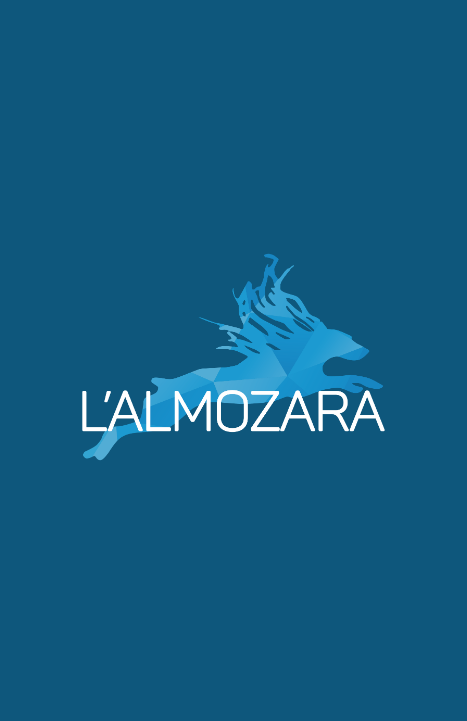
#include <cairo.h>
#include <math.h>
#include <stddef.h>

static cairo_t *ctx;

static void use_color(int r, int g, int b) {
    cairo_set_source_rgb(ctx, r / 255.0, g / 255.0, b / 255.0);
}

static void picture(const char *path, double x, double y, double w, double h) {
    cairo_surface_t *image = cairo_image_surface_create_from_png(path);
    cairo_save(ctx);
    cairo_set_source_surface(ctx, image, x, y);
    cairo_rectangle(ctx, x, y, w, h);
    cairo_fill(ctx);
    cairo_restore(ctx);
    cairo_surface_destroy(image);
}

int main(void) {
    cairo_surface_t *surface = cairo_image_surface_create(CAIRO_FORMAT_RGB24, 467, 721);
    ctx = cairo_create(surface);
    cairo_font_options_t *options = cairo_font_options_create();
    cairo_font_options_set_hint_metrics(options, CAIRO_HINT_METRICS_OFF);
    cairo_font_options_set_hint_style(options, CAIRO_HINT_STYLE_NONE);
    cairo_set_font_options(ctx, options);
    cairo_set_miter_limit(ctx, 4);
    use_color(14, 87, 124);
    cairo_paint(ctx);
    picture("img1.png", 82, 253, 303, 208);
    cairo_surface_write_to_png(surface, "result.png");
    cairo_font_options_destroy(options);
    cairo_destroy(ctx);
    cairo_surface_destroy(surface);
    return 0;
}
